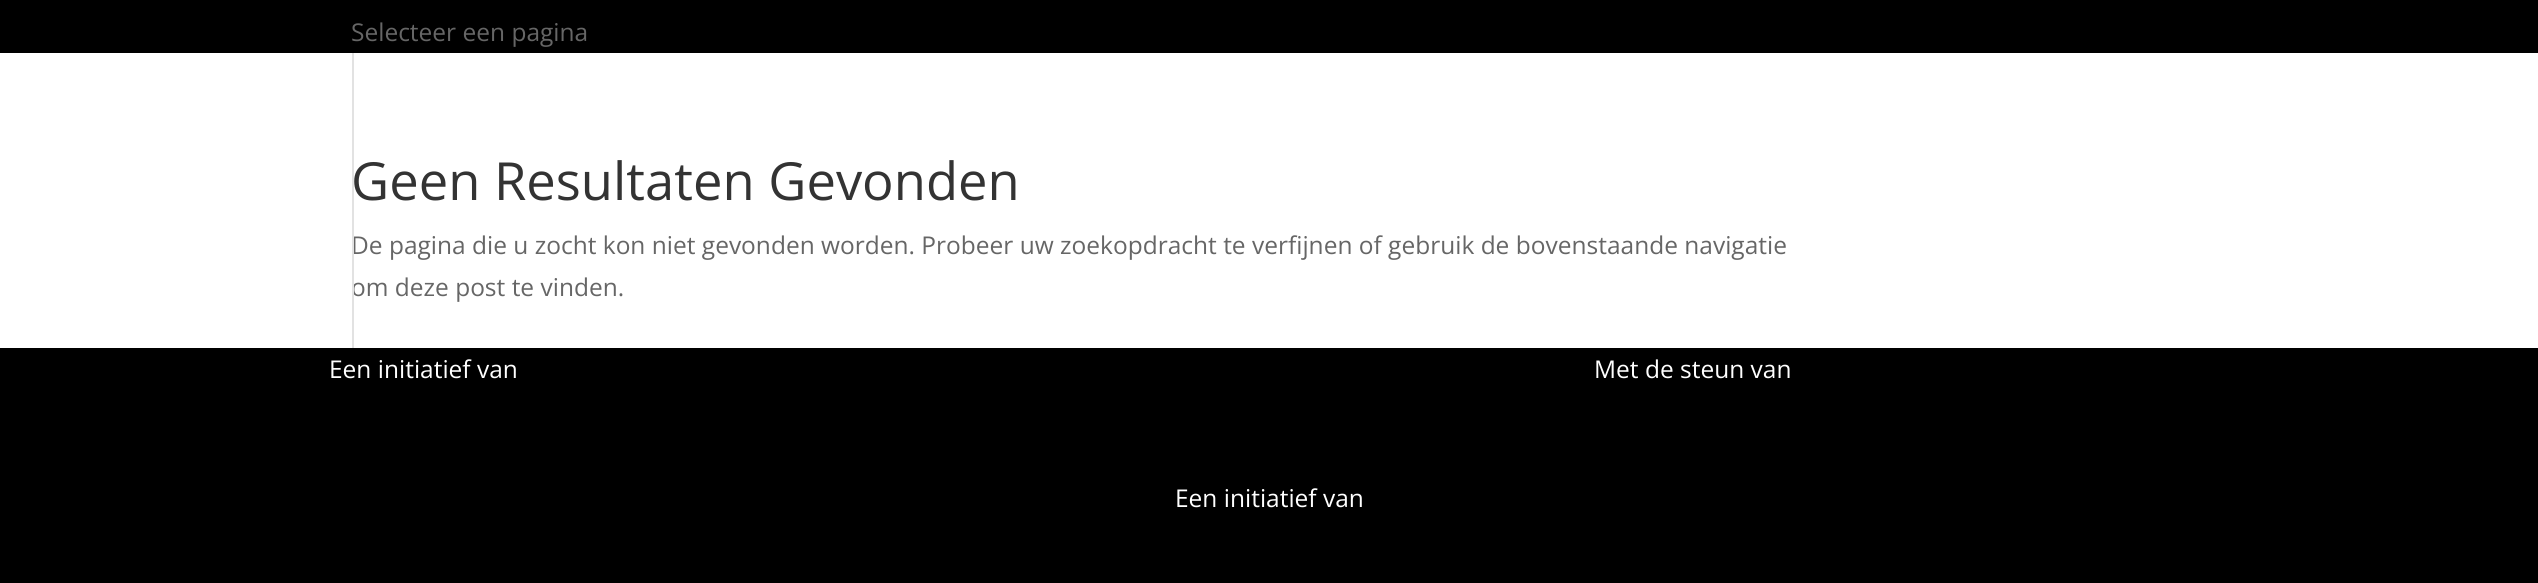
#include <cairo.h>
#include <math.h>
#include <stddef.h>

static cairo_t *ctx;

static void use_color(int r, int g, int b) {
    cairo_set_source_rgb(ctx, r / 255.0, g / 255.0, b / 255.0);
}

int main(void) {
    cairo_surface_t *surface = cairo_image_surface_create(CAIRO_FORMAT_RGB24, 2538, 583);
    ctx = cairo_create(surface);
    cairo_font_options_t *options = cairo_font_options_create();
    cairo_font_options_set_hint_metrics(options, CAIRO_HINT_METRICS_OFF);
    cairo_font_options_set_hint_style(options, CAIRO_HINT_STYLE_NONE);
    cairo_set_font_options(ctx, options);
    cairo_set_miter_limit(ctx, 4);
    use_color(0, 0, 0);
    cairo_paint(ctx);
    cairo_select_font_face(ctx, "Open Sans", CAIRO_FONT_SLANT_NORMAL, CAIRO_FONT_WEIGHT_NORMAL);
    cairo_set_font_size(ctx, 24.5);
    use_color(102, 102, 102);
    cairo_move_to(ctx, 351, 41);
    cairo_show_text(ctx, "Selecteer een pagina");
    use_color(255, 255, 255);
    cairo_rectangle(ctx, 0, 53, 2538, 295);
    cairo_fill(ctx);
    use_color(102, 102, 102);
    cairo_move_to(ctx, 351, 254);
    cairo_show_text(ctx, "De pagina die u zocht kon niet gevonden worden. Probeer uw zoekopdracht te verfijnen of gebruik de bovenstaande navigatie");
    cairo_move_to(ctx, 351, 296);
    cairo_show_text(ctx, "om deze post te vinden.");
    use_color(226, 226, 226);
    cairo_rectangle(ctx, 352, 53, 2, 295);
    cairo_fill(ctx);
    cairo_set_font_size(ctx, 52.5);
    use_color(51, 51, 51);
    cairo_move_to(ctx, 351, 200);
    cairo_show_text(ctx, "Geen Resultaten Gevonden");
    cairo_set_font_size(ctx, 24.5);
    use_color(255, 255, 255);
    cairo_move_to(ctx, 329, 378);
    cairo_show_text(ctx, "Een initiatief van");
    cairo_move_to(ctx, 1594, 378);
    cairo_show_text(ctx, "Met de steun van");
    cairo_move_to(ctx, 1175, 507);
    cairo_show_text(ctx, "Een initiatief van");
    cairo_surface_write_to_png(surface, "result.png");
    cairo_font_options_destroy(options);
    cairo_destroy(ctx);
    cairo_surface_destroy(surface);
    return 0;
}
